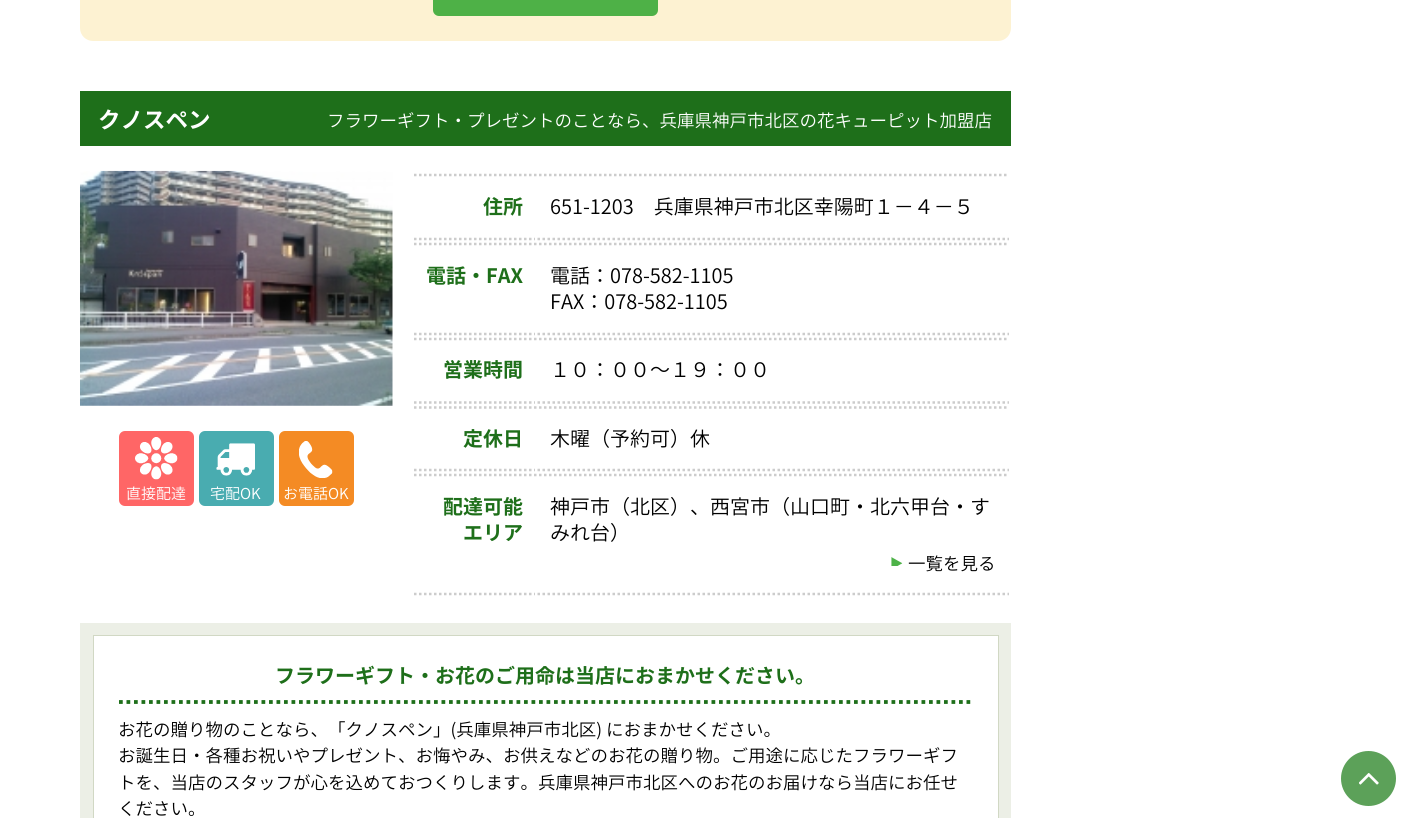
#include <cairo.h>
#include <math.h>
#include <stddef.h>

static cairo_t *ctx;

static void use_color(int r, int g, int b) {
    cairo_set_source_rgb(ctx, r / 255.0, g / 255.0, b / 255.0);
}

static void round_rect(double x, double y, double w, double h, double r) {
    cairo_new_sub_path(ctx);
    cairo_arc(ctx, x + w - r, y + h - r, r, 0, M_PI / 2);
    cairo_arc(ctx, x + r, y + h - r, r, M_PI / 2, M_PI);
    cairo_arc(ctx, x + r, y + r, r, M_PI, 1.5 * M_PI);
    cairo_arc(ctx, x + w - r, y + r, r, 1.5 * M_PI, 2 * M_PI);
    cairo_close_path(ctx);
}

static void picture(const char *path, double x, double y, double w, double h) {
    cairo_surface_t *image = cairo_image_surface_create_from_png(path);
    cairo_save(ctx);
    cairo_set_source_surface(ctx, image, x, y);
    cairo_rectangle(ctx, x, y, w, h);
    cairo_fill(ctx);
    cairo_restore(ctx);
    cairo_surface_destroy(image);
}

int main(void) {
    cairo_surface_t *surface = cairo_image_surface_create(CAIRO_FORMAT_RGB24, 1408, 818);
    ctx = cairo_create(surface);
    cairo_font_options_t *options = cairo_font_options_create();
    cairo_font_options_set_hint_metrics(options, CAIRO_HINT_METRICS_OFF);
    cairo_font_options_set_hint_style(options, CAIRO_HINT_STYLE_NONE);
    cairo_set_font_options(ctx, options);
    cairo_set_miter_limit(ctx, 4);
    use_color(255, 255, 255);
    cairo_paint(ctx);
    use_color(253, 242, 210);
    round_rect(80, -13, 931, 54, 13);
    cairo_fill(ctx);
    use_color(78, 177, 71);
    round_rect(433, -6, 225, 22, 6);
    cairo_fill(ctx);
    use_color(30, 111, 26);
    cairo_rectangle(ctx, 80, 91, 931, 55);
    cairo_fill(ctx);
    cairo_select_font_face(ctx, "Noto Sans JP", CAIRO_FONT_SLANT_NORMAL, CAIRO_FONT_WEIGHT_BOLD);
    cairo_set_font_size(ctx, 22.5);
    use_color(255, 255, 255);
    cairo_move_to(ctx, 98, 128);
    cairo_show_text(ctx, "クノスペン");
    cairo_select_font_face(ctx, "Noto Sans JP Light", CAIRO_FONT_SLANT_NORMAL, CAIRO_FONT_WEIGHT_NORMAL);
    cairo_set_font_size(ctx, 17.5);
    cairo_move_to(ctx, 327, 127);
    cairo_show_text(ctx, "フラワーギフト・プレゼントのことなら、兵庫県神戸市北区の花キューピット加盟店");
    picture("img1.png", 80, 170, 313, 236);
    use_color(255, 102, 102);
    round_rect(119, 431, 75, 75, 6);
    cairo_fill(ctx);
    picture("img2.png", 135, 437, 43, 43);
    cairo_set_font_size(ctx, 15);
    use_color(255, 255, 255);
    cairo_move_to(ctx, 126, 499);
    cairo_show_text(ctx, "直接配達");
    use_color(73, 172, 176);
    round_rect(199, 431, 75, 75, 6);
    cairo_fill(ctx);
    picture("img3.png", 216, 443, 39, 33);
    use_color(255, 255, 255);
    cairo_move_to(ctx, 210, 499);
    cairo_show_text(ctx, "宅配OK");
    use_color(244, 139, 36);
    round_rect(279, 431, 75, 75, 6);
    cairo_fill(ctx);
    picture("img4.png", 299, 441, 34, 37);
    use_color(255, 255, 255);
    cairo_move_to(ctx, 283, 499);
    cairo_show_text(ctx, "お電話OK");
    cairo_new_path(ctx);
    cairo_move_to(ctx, 414, 175);
    cairo_line_to(ctx, 1009, 175);
    use_color(204, 204, 204);
    cairo_set_line_width(ctx, 2.5);
    cairo_set_dash(ctx, (double[]){2.5, 2.5}, 2, 0);
    cairo_stroke(ctx);
    cairo_new_path(ctx);
    cairo_move_to(ctx, 414, 239);
    cairo_line_to(ctx, 535, 239);
    cairo_stroke(ctx);
    cairo_select_font_face(ctx, "Noto Sans JP", CAIRO_FONT_SLANT_NORMAL, CAIRO_FONT_WEIGHT_BOLD);
    cairo_set_font_size(ctx, 20);
    use_color(30, 111, 26);
    cairo_move_to(ctx, 483, 214);
    cairo_show_text(ctx, "住所");
    cairo_new_path(ctx);
    cairo_move_to(ctx, 537.5, 239);
    cairo_line_to(ctx, 1009, 239);
    use_color(204, 204, 204);
    cairo_stroke(ctx);
    cairo_select_font_face(ctx, "Noto Sans JP Light", CAIRO_FONT_SLANT_NORMAL, CAIRO_FONT_WEIGHT_NORMAL);
    use_color(0, 0, 0);
    cairo_move_to(ctx, 550, 214);
    cairo_show_text(ctx, "651-1203　兵庫県神戸市北区幸陽町１−４−５");
    cairo_new_path(ctx);
    cairo_move_to(ctx, 414, 244);
    cairo_line_to(ctx, 1009, 244);
    use_color(204, 204, 204);
    cairo_stroke(ctx);
    cairo_new_path(ctx);
    cairo_move_to(ctx, 414, 334);
    cairo_line_to(ctx, 535, 334);
    cairo_stroke(ctx);
    cairo_select_font_face(ctx, "Noto Sans JP", CAIRO_FONT_SLANT_NORMAL, CAIRO_FONT_WEIGHT_BOLD);
    use_color(30, 111, 26);
    cairo_move_to(ctx, 426, 283);
    cairo_show_text(ctx, "電話・FAX");
    cairo_new_path(ctx);
    cairo_move_to(ctx, 537.5, 334);
    cairo_line_to(ctx, 1009, 334);
    use_color(204, 204, 204);
    cairo_stroke(ctx);
    cairo_select_font_face(ctx, "Noto Sans JP Light", CAIRO_FONT_SLANT_NORMAL, CAIRO_FONT_WEIGHT_NORMAL);
    use_color(0, 0, 0);
    cairo_move_to(ctx, 550, 283);
    cairo_show_text(ctx, "電話：078-582-1105");
    cairo_move_to(ctx, 550, 309);
    cairo_show_text(ctx, "FAX：078-582-1105");
    cairo_new_path(ctx);
    cairo_move_to(ctx, 414, 339);
    cairo_line_to(ctx, 1009, 339);
    use_color(204, 204, 204);
    cairo_stroke(ctx);
    cairo_new_path(ctx);
    cairo_move_to(ctx, 414, 402.5);
    cairo_line_to(ctx, 535, 402.5);
    cairo_stroke(ctx);
    cairo_select_font_face(ctx, "Noto Sans JP", CAIRO_FONT_SLANT_NORMAL, CAIRO_FONT_WEIGHT_BOLD);
    use_color(30, 111, 26);
    cairo_move_to(ctx, 443, 377);
    cairo_show_text(ctx, "営業時間");
    cairo_new_path(ctx);
    cairo_move_to(ctx, 537.5, 402.5);
    cairo_line_to(ctx, 1009, 402.5);
    use_color(204, 204, 204);
    cairo_stroke(ctx);
    cairo_select_font_face(ctx, "Noto Sans JP Light", CAIRO_FONT_SLANT_NORMAL, CAIRO_FONT_WEIGHT_NORMAL);
    use_color(0, 0, 0);
    cairo_move_to(ctx, 550, 377);
    cairo_show_text(ctx, "１０：００〜１９：００");
    cairo_new_path(ctx);
    cairo_move_to(ctx, 414, 407.5);
    cairo_line_to(ctx, 1009, 407.5);
    use_color(204, 204, 204);
    cairo_stroke(ctx);
    cairo_new_path(ctx);
    cairo_move_to(ctx, 414, 470);
    cairo_line_to(ctx, 535, 470);
    cairo_stroke(ctx);
    cairo_select_font_face(ctx, "Noto Sans JP", CAIRO_FONT_SLANT_NORMAL, CAIRO_FONT_WEIGHT_BOLD);
    use_color(30, 111, 26);
    cairo_move_to(ctx, 463, 446);
    cairo_show_text(ctx, "定休日");
    cairo_new_path(ctx);
    cairo_move_to(ctx, 537.5, 470);
    cairo_line_to(ctx, 1009, 470);
    use_color(204, 204, 204);
    cairo_stroke(ctx);
    cairo_select_font_face(ctx, "Noto Sans JP Light", CAIRO_FONT_SLANT_NORMAL, CAIRO_FONT_WEIGHT_NORMAL);
    use_color(0, 0, 0);
    cairo_move_to(ctx, 550, 446);
    cairo_show_text(ctx, "木曜（予約可）休");
    cairo_new_path(ctx);
    cairo_move_to(ctx, 414, 475);
    cairo_line_to(ctx, 1009, 475);
    use_color(204, 204, 204);
    cairo_stroke(ctx);
    cairo_new_path(ctx);
    cairo_move_to(ctx, 414, 594);
    cairo_line_to(ctx, 535, 594);
    cairo_stroke(ctx);
    cairo_select_font_face(ctx, "Noto Sans JP", CAIRO_FONT_SLANT_NORMAL, CAIRO_FONT_WEIGHT_BOLD);
    use_color(30, 111, 26);
    cairo_move_to(ctx, 443, 514);
    cairo_show_text(ctx, "配達可能");
    cairo_move_to(ctx, 463, 540);
    cairo_show_text(ctx, "エリア");
    cairo_new_path(ctx);
    cairo_move_to(ctx, 537.5, 594);
    cairo_line_to(ctx, 1009, 594);
    use_color(204, 204, 204);
    cairo_stroke(ctx);
    cairo_select_font_face(ctx, "Noto Sans JP Light", CAIRO_FONT_SLANT_NORMAL, CAIRO_FONT_WEIGHT_NORMAL);
    use_color(0, 0, 0);
    cairo_move_to(ctx, 550, 514);
    cairo_show_text(ctx, "神戸市（北区）、西宮市（山口町・北六甲台・す");
    cairo_move_to(ctx, 550, 540);
    cairo_show_text(ctx, "みれ台）");
    picture("img5.png", 891, 557, 12, 9);
    cairo_set_font_size(ctx, 17.5);
    cairo_move_to(ctx, 908, 570);
    cairo_show_text(ctx, "一覧を見る");
    use_color(236, 239, 230);
    cairo_rectangle(ctx, 80, 623, 931, 195);
    cairo_fill(ctx);
    use_color(255, 255, 255);
    cairo_rectangle(ctx, 93.5, 635.5, 905, 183);
    cairo_fill_preserve(ctx);
    use_color(209, 216, 196);
    cairo_set_line_width(ctx, 1);
    cairo_set_dash(ctx, NULL, 0, 0);
    cairo_stroke(ctx);
    cairo_new_path(ctx);
    cairo_move_to(ctx, 119, 702);
    cairo_line_to(ctx, 972.5, 702);
    use_color(30, 111, 26);
    cairo_set_line_width(ctx, 3.8);
    cairo_set_dash(ctx, (double[]){3.75, 3.75}, 2, 0);
    cairo_stroke(ctx);
    cairo_select_font_face(ctx, "Noto Sans JP", CAIRO_FONT_SLANT_NORMAL, CAIRO_FONT_WEIGHT_BOLD);
    cairo_set_font_size(ctx, 20);
    cairo_move_to(ctx, 275, 683);
    cairo_show_text(ctx, "フラワーギフト・お花のご用命は当店におまかせください。");
    cairo_select_font_face(ctx, "Noto Sans JP Light", CAIRO_FONT_SLANT_NORMAL, CAIRO_FONT_WEIGHT_NORMAL);
    cairo_set_font_size(ctx, 17.5);
    use_color(0, 0, 0);
    cairo_move_to(ctx, 118, 736);
    cairo_show_text(ctx, "お花の贈り物のことなら、「クノスペン」(兵庫県神戸市北区) におまかせください。");
    cairo_move_to(ctx, 118, 762);
    cairo_show_text(ctx, "お誕生日・各種お祝いやプレゼント、お悔やみ、お供えなどのお花の贈り物。ご用途に応じたフラワーギフ");
    cairo_move_to(ctx, 118, 789);
    cairo_show_text(ctx, "トを、当店のスタッフが心を込めておつくりします。兵庫県神戸市北区へのお花のお届けなら当店にお任せ");
    cairo_move_to(ctx, 118, 815);
    cairo_show_text(ctx, "ください。");
    use_color(92, 161, 89);
    cairo_new_path(ctx);
    cairo_arc(ctx, 1368.5, 778.5, 27.5, 0, 2 * M_PI);
    cairo_fill(ctx);
    picture("img6.png", 1359, 773, 20, 12);
    cairo_surface_write_to_png(surface, "result.png");
    cairo_font_options_destroy(options);
    cairo_destroy(ctx);
    cairo_surface_destroy(surface);
    return 0;
}
